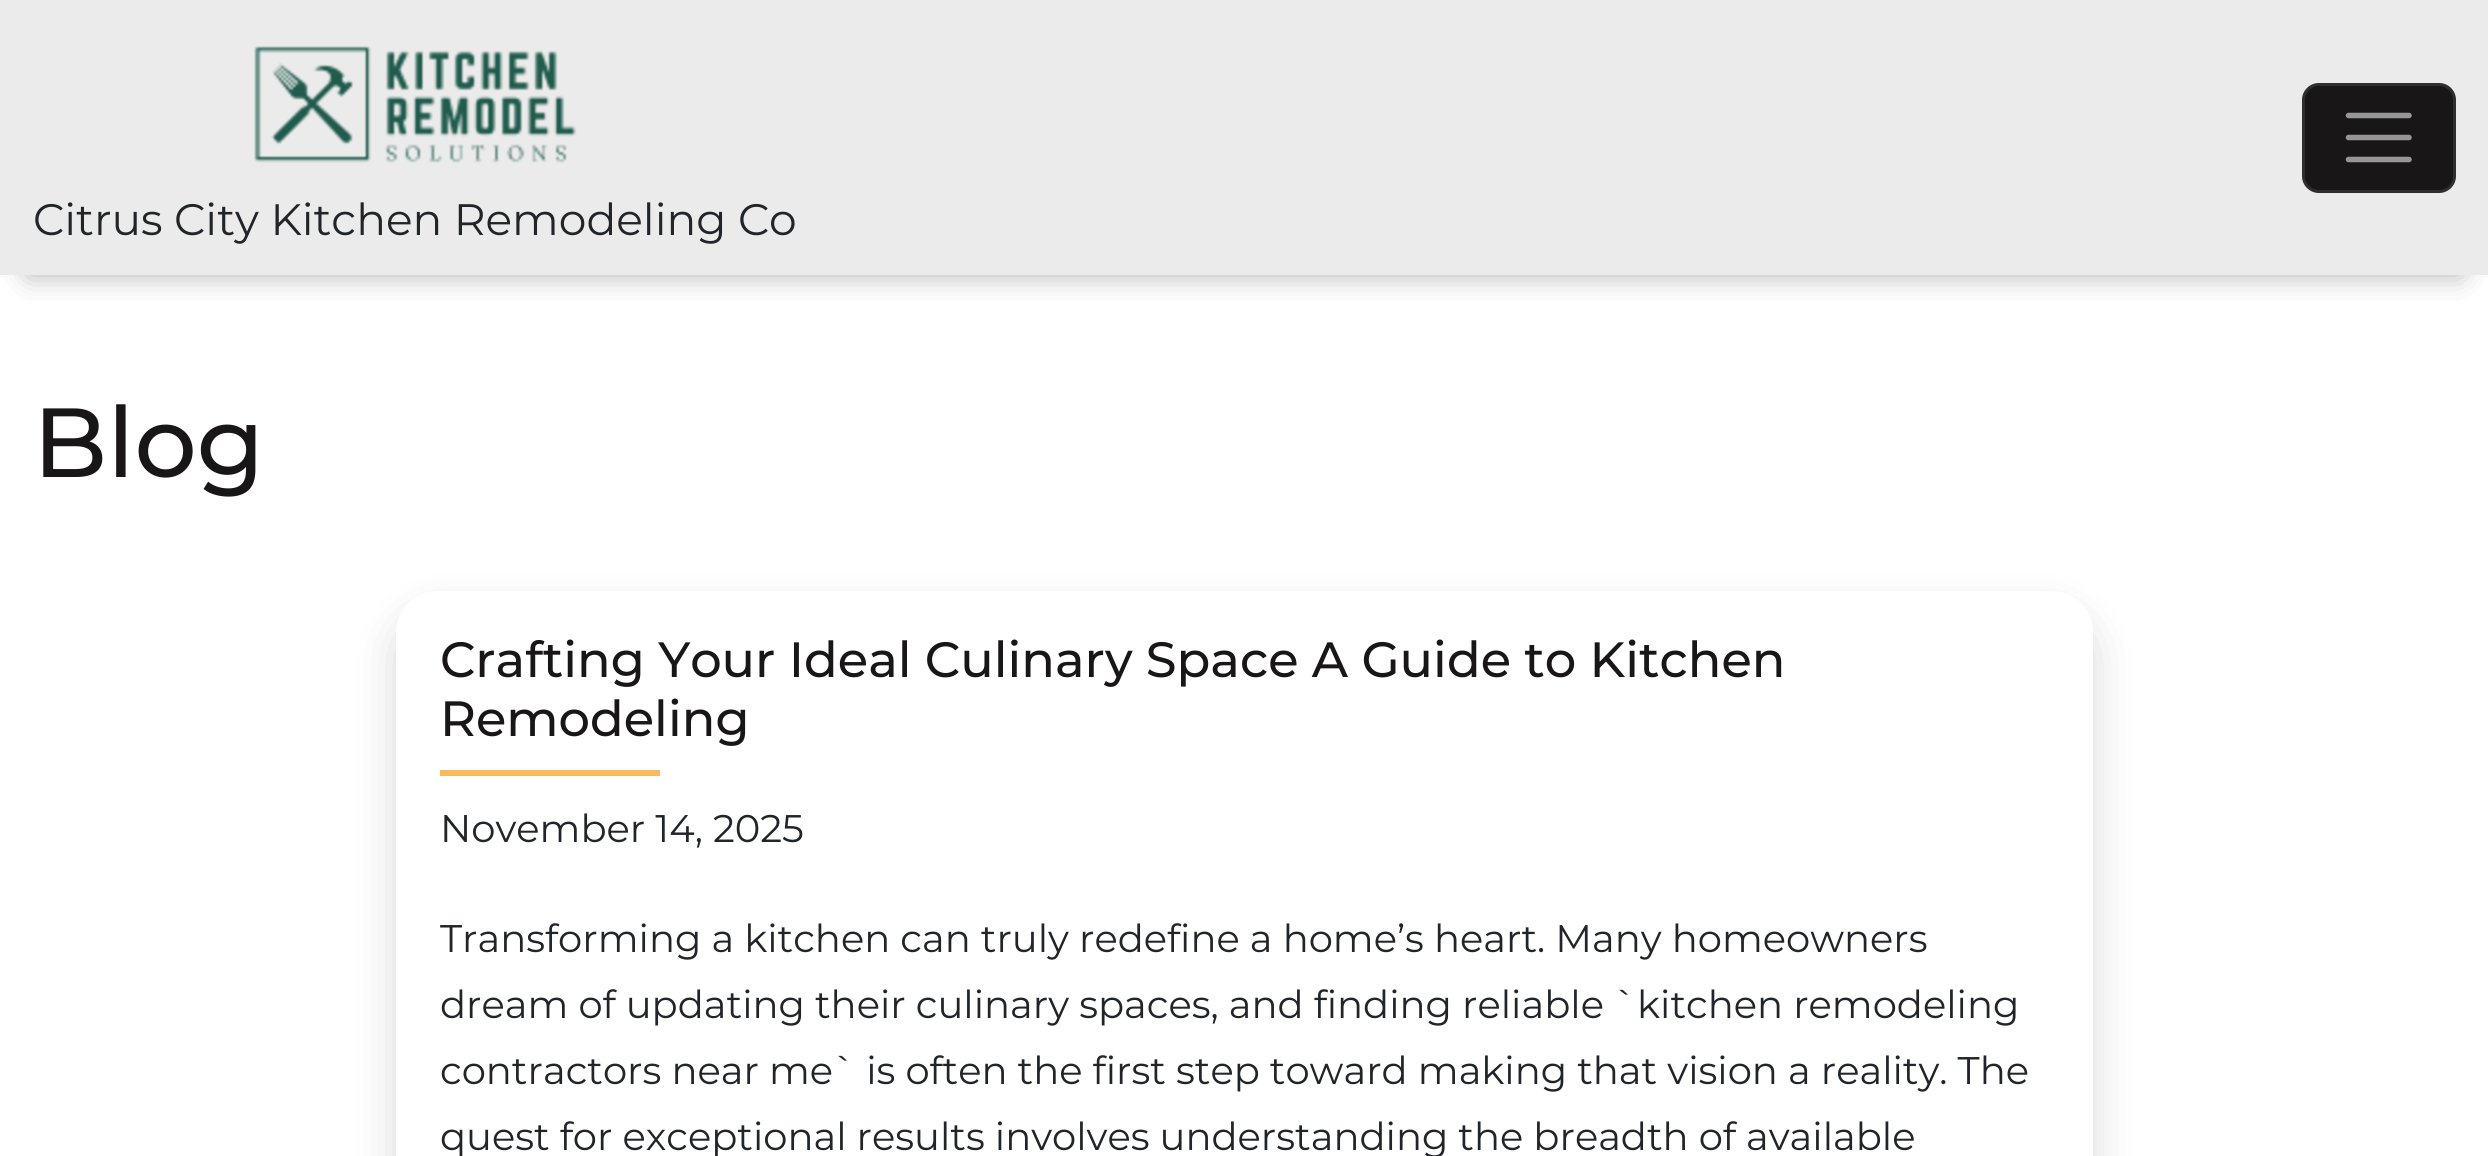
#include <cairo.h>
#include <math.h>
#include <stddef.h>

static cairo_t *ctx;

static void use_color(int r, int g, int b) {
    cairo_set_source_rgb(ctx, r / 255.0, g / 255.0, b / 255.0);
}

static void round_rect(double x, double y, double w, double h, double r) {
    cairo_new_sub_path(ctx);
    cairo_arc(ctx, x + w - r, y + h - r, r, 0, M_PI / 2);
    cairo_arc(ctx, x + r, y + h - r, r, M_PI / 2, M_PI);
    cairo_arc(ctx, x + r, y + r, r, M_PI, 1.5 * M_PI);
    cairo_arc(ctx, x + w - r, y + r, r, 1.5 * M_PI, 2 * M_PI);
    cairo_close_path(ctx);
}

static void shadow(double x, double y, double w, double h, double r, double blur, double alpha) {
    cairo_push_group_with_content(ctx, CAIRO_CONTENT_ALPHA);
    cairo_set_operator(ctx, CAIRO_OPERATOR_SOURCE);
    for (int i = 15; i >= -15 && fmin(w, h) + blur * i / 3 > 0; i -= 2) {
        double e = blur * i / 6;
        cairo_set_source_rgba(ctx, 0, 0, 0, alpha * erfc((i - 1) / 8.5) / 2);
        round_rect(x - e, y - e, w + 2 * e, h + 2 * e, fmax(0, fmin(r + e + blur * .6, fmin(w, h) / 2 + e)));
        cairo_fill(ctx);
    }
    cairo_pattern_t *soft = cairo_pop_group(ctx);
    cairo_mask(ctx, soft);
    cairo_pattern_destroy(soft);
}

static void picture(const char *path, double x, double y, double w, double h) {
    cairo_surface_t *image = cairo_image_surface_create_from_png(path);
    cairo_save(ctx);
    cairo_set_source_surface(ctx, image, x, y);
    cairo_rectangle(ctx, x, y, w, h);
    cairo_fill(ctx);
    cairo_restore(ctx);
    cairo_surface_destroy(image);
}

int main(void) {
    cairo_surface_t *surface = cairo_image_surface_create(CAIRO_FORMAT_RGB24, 2488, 1156);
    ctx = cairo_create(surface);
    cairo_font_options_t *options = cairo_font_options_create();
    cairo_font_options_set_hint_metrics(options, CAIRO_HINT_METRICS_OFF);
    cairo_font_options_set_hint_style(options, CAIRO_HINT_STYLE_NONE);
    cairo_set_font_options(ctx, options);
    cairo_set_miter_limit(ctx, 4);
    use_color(255, 255, 255);
    cairo_paint(ctx);
    use_color(17, 17, 17);
    shadow(28, 55, 2433, 220, 0, 14, 0.33);
    use_color(235, 235, 235);
    cairo_rectangle(ctx, 0, 0, 2488, 275);
    cairo_fill(ctx);
    use_color(24, 22, 23);
    round_rect(2302, 83, 154, 110, 17);
    cairo_fill(ctx);
    round_rect(2303.5, 84.5, 151, 107, 15.5);
    cairo_set_source_rgba(ctx, 1, 1, 1, 0.1);
    cairo_set_line_width(ctx, 3);
    cairo_stroke(ctx);
    cairo_new_path(ctx);
    cairo_move_to(ctx, 2348.5, 115.5);
    cairo_line_to(ctx, 2409, 115.5);
    cairo_move_to(ctx, 2348.5, 137.5);
    cairo_line_to(ctx, 2409, 137.5);
    cairo_move_to(ctx, 2348.5, 159.5);
    cairo_line_to(ctx, 2409, 159.5);
    use_color(151, 150, 151);
    cairo_set_line_width(ctx, 5.5);
    cairo_set_line_cap(ctx, CAIRO_LINE_CAP_ROUND);
    cairo_stroke(ctx);
    picture("img1.png", 254, 46, 323, 117);
    cairo_select_font_face(ctx, "Montserrat", CAIRO_FONT_SLANT_NORMAL, CAIRO_FONT_WEIGHT_NORMAL);
    cairo_set_font_size(ctx, 44);
    use_color(33, 37, 41);
    cairo_move_to(ctx, 33, 235);
    cairo_show_text(ctx, "Citrus City Kitchen Remodeling Co");
    cairo_select_font_face(ctx, "Montserrat Medium", CAIRO_FONT_SLANT_NORMAL, CAIRO_FONT_WEIGHT_NORMAL);
    cairo_set_font_size(ctx, 98);
    use_color(24, 22, 23);
    cairo_move_to(ctx, 33, 477);
    cairo_show_text(ctx, "Blog");
    use_color(0, 0, 0);
    shadow(396, 613, 1697, 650, 41, 22, 0.15);
    use_color(255, 255, 255);
    cairo_new_path(ctx);
    cairo_move_to(ctx, 437, 591);
    cairo_line_to(ctx, 2052, 591);
    cairo_curve_to(ctx, 2074.5, 591, 2093, 609.5, 2093, 632);
    cairo_line_to(ctx, 2093, 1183);
    cairo_curve_to(ctx, 2093, 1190.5, 2086.5, 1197, 2079, 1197);
    cairo_line_to(ctx, 410, 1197);
    cairo_curve_to(ctx, 402.5, 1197, 396, 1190.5, 396, 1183);
    cairo_line_to(ctx, 396, 632);
    cairo_curve_to(ctx, 396, 609.5, 414.5, 591, 437, 591);
    cairo_close_path(ctx);
    cairo_fill(ctx);
    cairo_set_font_size(ctx, 49.5);
    use_color(24, 22, 23);
    cairo_move_to(ctx, 440, 677);
    cairo_show_text(ctx, "Crafting Your Ideal Culinary Space A Guide to Kitchen");
    cairo_move_to(ctx, 440, 736);
    cairo_show_text(ctx, "Remodeling");
    use_color(250, 186, 89);
    cairo_rectangle(ctx, 440, 770, 220, 6);
    cairo_fill(ctx);
    cairo_select_font_face(ctx, "Montserrat", CAIRO_FONT_SLANT_NORMAL, CAIRO_FONT_WEIGHT_NORMAL);
    cairo_set_font_size(ctx, 38.5);
    use_color(33, 37, 41);
    cairo_move_to(ctx, 440, 842);
    cairo_show_text(ctx, "November 14, 2025");
    cairo_move_to(ctx, 440, 952);
    cairo_show_text(ctx, "Transforming a kitchen can truly redefine a home’s heart. Many homeowners");
    cairo_move_to(ctx, 440, 1018);
    cairo_show_text(ctx, "dream of updating their culinary spaces, and finding reliable `kitchen remodeling");
    cairo_move_to(ctx, 440, 1084);
    cairo_show_text(ctx, "contractors near me` is often the first step toward making that vision a reality. The");
    cairo_move_to(ctx, 440, 1150);
    cairo_show_text(ctx, "quest for exceptional results involves understanding the breadth of available");
    cairo_surface_write_to_png(surface, "result.png");
    cairo_font_options_destroy(options);
    cairo_destroy(ctx);
    cairo_surface_destroy(surface);
    return 0;
}
